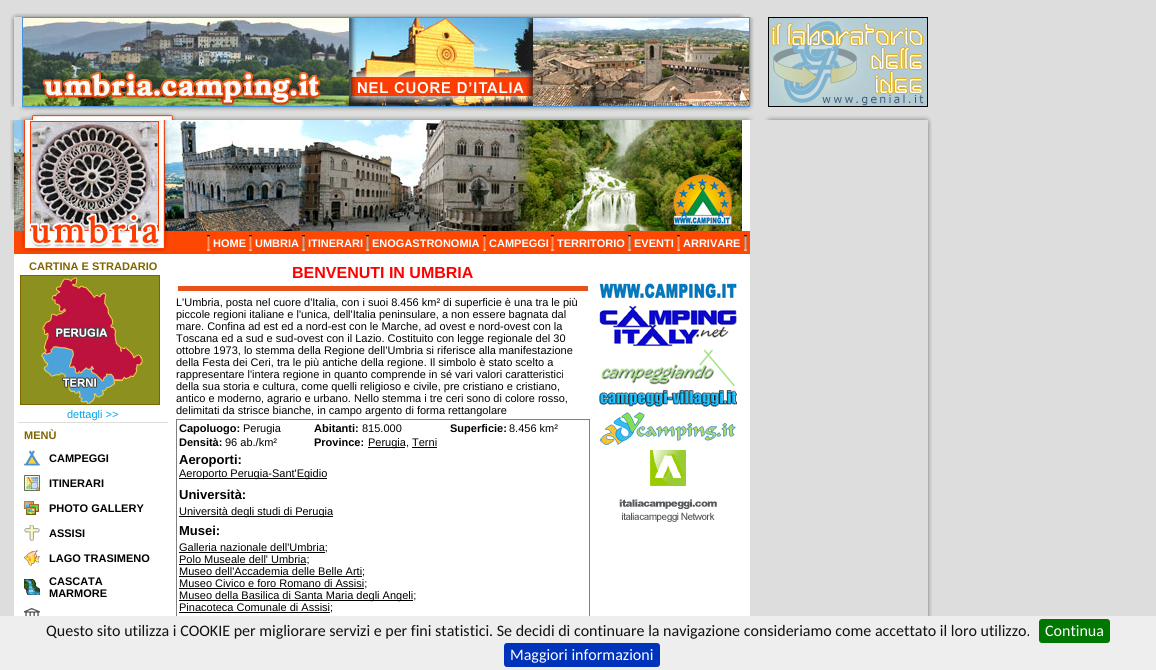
#include <cairo.h>
#include <math.h>
#include <stddef.h>

static cairo_t *ctx;

static void use_color(int r, int g, int b) {
    cairo_set_source_rgb(ctx, r / 255.0, g / 255.0, b / 255.0);
}

static void round_rect(double x, double y, double w, double h, double r) {
    cairo_new_sub_path(ctx);
    cairo_arc(ctx, x + w - r, y + h - r, r, 0, M_PI / 2);
    cairo_arc(ctx, x + r, y + h - r, r, M_PI / 2, M_PI);
    cairo_arc(ctx, x + r, y + r, r, M_PI, 1.5 * M_PI);
    cairo_arc(ctx, x + w - r, y + r, r, 1.5 * M_PI, 2 * M_PI);
    cairo_close_path(ctx);
}

static void picture(const char *path, double x, double y, double w, double h) {
    cairo_surface_t *image = cairo_image_surface_create_from_png(path);
    cairo_save(ctx);
    cairo_set_source_surface(ctx, image, x, y);
    cairo_rectangle(ctx, x, y, w, h);
    cairo_fill(ctx);
    cairo_restore(ctx);
    cairo_surface_destroy(image);
}

int main(void) {
    cairo_surface_t *surface = cairo_image_surface_create(CAIRO_FORMAT_RGB24, 1156, 670);
    ctx = cairo_create(surface);
    cairo_font_options_t *options = cairo_font_options_create();
    cairo_font_options_set_hint_metrics(options, CAIRO_HINT_METRICS_OFF);
    cairo_font_options_set_hint_style(options, CAIRO_HINT_STYLE_NONE);
    cairo_set_font_options(ctx, options);
    cairo_set_miter_limit(ctx, 4);
    use_color(221, 221, 221);
    cairo_paint(ctx);
    picture("img1.png", 11, 13, 734, 4);
    picture("img2.png", 10, 17, 4, 90);
    picture("img3.png", 22, 17, 728, 90);
    picture("img4.png", 750, 17, 4, 90);
    picture("img5.png", 768, 17, 160, 90);
    picture("img6.png", 19, 107, 912, 13);
    picture("img2.png", 10, 120, 4, 90);
    use_color(255, 255, 255);
    cairo_rectangle(ctx, 14, 120, 736, 496);
    cairo_fill(ctx);
    picture("img7.png", 14, 120, 728, 111);
    use_color(253, 71, 3);
    cairo_rectangle(ctx, 14, 231, 736, 23);
    cairo_fill(ctx);
    picture("img8.png", 20, 231, 149, 23);
    picture("img9.png", 207, 235, 3, 16);
    cairo_select_font_face(ctx, "Liberation Sans", CAIRO_FONT_SLANT_NORMAL, CAIRO_FONT_WEIGHT_BOLD);
    cairo_set_font_size(ctx, 11);
    use_color(255, 255, 255);
    cairo_move_to(ctx, 213, 247);
    cairo_show_text(ctx, "HOME");
    picture("img9.png", 249, 235, 3, 16);
    cairo_move_to(ctx, 255, 247);
    cairo_show_text(ctx, "UMBRIA");
    picture("img9.png", 302, 235, 3, 16);
    cairo_move_to(ctx, 308, 247);
    cairo_show_text(ctx, "ITINERARI");
    picture("img9.png", 366, 235, 3, 16);
    cairo_move_to(ctx, 372, 247);
    cairo_show_text(ctx, "ENOGASTRONOMIA");
    picture("img9.png", 483, 235, 3, 16);
    cairo_move_to(ctx, 489, 247);
    cairo_show_text(ctx, "CAMPEGGI");
    picture("img9.png", 551, 235, 3, 16);
    cairo_move_to(ctx, 557, 247);
    cairo_show_text(ctx, "TERRITORIO");
    picture("img9.png", 628, 235, 3, 16);
    cairo_move_to(ctx, 634, 247);
    cairo_show_text(ctx, "EVENTI");
    picture("img9.png", 677, 235, 3, 16);
    cairo_move_to(ctx, 683, 247);
    cairo_show_text(ctx, "ARRIVARE");
    picture("img9.png", 744, 235, 3, 16);
    use_color(128, 100, 0);
    cairo_move_to(ctx, 29, 270);
    cairo_show_text(ctx, "CARTINA E STRADARIO");
    picture("img10.png", 20, 275, 140, 130);
    cairo_select_font_face(ctx, "Liberation Sans", CAIRO_FONT_SLANT_NORMAL, CAIRO_FONT_WEIGHT_NORMAL);
    use_color(0, 166, 235);
    cairo_move_to(ctx, 67, 418);
    cairo_show_text(ctx, "dettagli >>");
    use_color(221, 221, 221);
    cairo_rectangle(ctx, 18, 422, 150, 1);
    cairo_fill(ctx);
    cairo_select_font_face(ctx, "Liberation Sans", CAIRO_FONT_SLANT_NORMAL, CAIRO_FONT_WEIGHT_BOLD);
    use_color(128, 100, 0);
    cairo_move_to(ctx, 24, 439);
    cairo_show_text(ctx, "MENÙ");
    picture("img11.png", 24, 450, 16, 16);
    use_color(0, 0, 0);
    cairo_move_to(ctx, 49, 462);
    cairo_show_text(ctx, "CAMPEGGI");
    picture("img12.png", 24, 475, 16, 16);
    cairo_move_to(ctx, 49, 487);
    cairo_show_text(ctx, "ITINERARI");
    picture("img13.png", 24, 501, 15, 14);
    cairo_move_to(ctx, 49, 512);
    cairo_show_text(ctx, "PHOTO GALLERY");
    picture("img14.png", 24, 525, 16, 16);
    cairo_move_to(ctx, 49, 537);
    cairo_show_text(ctx, "ASSISI");
    picture("img15.png", 24, 550, 16, 16);
    cairo_move_to(ctx, 49, 562);
    cairo_show_text(ctx, "LAGO TRASIMENO");
    picture("img16.png", 24, 579, 16, 16);
    cairo_move_to(ctx, 49, 585);
    cairo_show_text(ctx, "CASCATA");
    cairo_move_to(ctx, 49, 597);
    cairo_show_text(ctx, "MARMORE");
    picture("img17.png", 24, 608, 16, 8);
    cairo_set_font_size(ctx, 16);
    use_color(255, 0, 0);
    cairo_move_to(ctx, 292, 278);
    cairo_show_text(ctx, "BENVENUTI IN UMBRIA");
    use_color(231, 81, 27);
    cairo_rectangle(ctx, 178, 286, 410, 5);
    cairo_fill(ctx);
    cairo_select_font_face(ctx, "Liberation Sans", CAIRO_FONT_SLANT_NORMAL, CAIRO_FONT_WEIGHT_NORMAL);
    cairo_set_font_size(ctx, 11);
    use_color(0, 0, 0);
    cairo_move_to(ctx, 176, 306);
    cairo_show_text(ctx, "L'Umbria, posta nel cuore d'Italia, con i suoi 8.456 km² di superficie è una tra le più");
    cairo_move_to(ctx, 176, 318);
    cairo_show_text(ctx, "piccole regioni italiane e l'unica, dell'Italia peninsulare, a non essere bagnata dal");
    cairo_move_to(ctx, 176, 330);
    cairo_show_text(ctx, "mare. Confina ad est ed a nord-est con le Marche, ad ovest e nord-ovest con la");
    cairo_move_to(ctx, 176, 342);
    cairo_show_text(ctx, "Toscana ed a sud e sud-ovest con il Lazio. Costituito con legge regionale del 30");
    cairo_move_to(ctx, 176, 354);
    cairo_show_text(ctx, "ottobre 1973, lo stemma della Regione dell’Umbria si riferisce alla manifestazione");
    cairo_move_to(ctx, 176, 366);
    cairo_show_text(ctx, "della Festa dei Ceri, tra le più antiche della regione. Il simbolo è stato scelto a");
    cairo_move_to(ctx, 176, 378);
    cairo_show_text(ctx, "rappresentare l'intera regione in quanto comprende in sé vari valori caratteristici");
    cairo_move_to(ctx, 176, 390);
    cairo_show_text(ctx, "della sua storia e cultura, come quelli religioso e civile, pre cristiano e cristiano,");
    cairo_move_to(ctx, 176, 402);
    cairo_show_text(ctx, "antico e moderno, agrario e urbano. Nello stemma i tre ceri sono di colore rosso,");
    cairo_move_to(ctx, 176, 414);
    cairo_show_text(ctx, "delimitati da strisce bianche, in campo argento di forma rettangolare");
    use_color(128, 128, 128);
    cairo_rectangle(ctx, 176, 419, 414, 1);
    cairo_fill(ctx);
    cairo_rectangle(ctx, 589, 419, 1, 197);
    cairo_fill(ctx);
    cairo_rectangle(ctx, 176, 419, 1, 197);
    cairo_fill(ctx);
    cairo_select_font_face(ctx, "Liberation Sans", CAIRO_FONT_SLANT_NORMAL, CAIRO_FONT_WEIGHT_BOLD);
    use_color(0, 0, 0);
    cairo_move_to(ctx, 179, 432);
    cairo_show_text(ctx, "Capoluogo:");
    cairo_select_font_face(ctx, "Liberation Sans", CAIRO_FONT_SLANT_NORMAL, CAIRO_FONT_WEIGHT_NORMAL);
    cairo_move_to(ctx, 243, 432);
    cairo_show_text(ctx, "Perugia");
    cairo_select_font_face(ctx, "Liberation Sans", CAIRO_FONT_SLANT_NORMAL, CAIRO_FONT_WEIGHT_BOLD);
    cairo_move_to(ctx, 314, 432);
    cairo_show_text(ctx, "Abitanti:");
    cairo_select_font_face(ctx, "Liberation Sans", CAIRO_FONT_SLANT_NORMAL, CAIRO_FONT_WEIGHT_NORMAL);
    cairo_move_to(ctx, 362, 432);
    cairo_show_text(ctx, "815.000");
    cairo_select_font_face(ctx, "Liberation Sans", CAIRO_FONT_SLANT_NORMAL, CAIRO_FONT_WEIGHT_BOLD);
    cairo_move_to(ctx, 450, 432);
    cairo_show_text(ctx, "Superficie:");
    cairo_select_font_face(ctx, "Liberation Sans", CAIRO_FONT_SLANT_NORMAL, CAIRO_FONT_WEIGHT_NORMAL);
    cairo_move_to(ctx, 509, 432);
    cairo_show_text(ctx, "8.456 km²");
    cairo_select_font_face(ctx, "Liberation Sans", CAIRO_FONT_SLANT_NORMAL, CAIRO_FONT_WEIGHT_BOLD);
    cairo_move_to(ctx, 179, 446);
    cairo_show_text(ctx, "Densità:");
    cairo_select_font_face(ctx, "Liberation Sans", CAIRO_FONT_SLANT_NORMAL, CAIRO_FONT_WEIGHT_NORMAL);
    cairo_move_to(ctx, 225, 446);
    cairo_show_text(ctx, "96 ab./km²");
    cairo_select_font_face(ctx, "Liberation Sans", CAIRO_FONT_SLANT_NORMAL, CAIRO_FONT_WEIGHT_BOLD);
    cairo_move_to(ctx, 314, 446);
    cairo_show_text(ctx, "Province:");
    cairo_rectangle(ctx, 368, 447, 37, 1);
    cairo_fill(ctx);
    cairo_select_font_face(ctx, "Liberation Sans", CAIRO_FONT_SLANT_NORMAL, CAIRO_FONT_WEIGHT_NORMAL);
    cairo_move_to(ctx, 368, 446);
    cairo_show_text(ctx, "Perugia, Terni");
    cairo_rectangle(ctx, 412, 447, 25, 1);
    cairo_fill(ctx);
    cairo_select_font_face(ctx, "Liberation Sans", CAIRO_FONT_SLANT_NORMAL, CAIRO_FONT_WEIGHT_BOLD);
    cairo_set_font_size(ctx, 13);
    cairo_move_to(ctx, 179, 464);
    cairo_show_text(ctx, "Aeroporti:");
    cairo_rectangle(ctx, 179, 478, 148, 1);
    cairo_fill(ctx);
    cairo_select_font_face(ctx, "Liberation Sans", CAIRO_FONT_SLANT_NORMAL, CAIRO_FONT_WEIGHT_NORMAL);
    cairo_set_font_size(ctx, 11);
    cairo_move_to(ctx, 179, 477);
    cairo_show_text(ctx, "Aeroporto Perugia-Sant'Egidio");
    cairo_select_font_face(ctx, "Liberation Sans", CAIRO_FONT_SLANT_NORMAL, CAIRO_FONT_WEIGHT_BOLD);
    cairo_set_font_size(ctx, 13);
    cairo_move_to(ctx, 179, 499);
    cairo_show_text(ctx, "Università:");
    cairo_rectangle(ctx, 179, 516, 154, 1);
    cairo_fill(ctx);
    cairo_select_font_face(ctx, "Liberation Sans", CAIRO_FONT_SLANT_NORMAL, CAIRO_FONT_WEIGHT_NORMAL);
    cairo_set_font_size(ctx, 11);
    cairo_move_to(ctx, 179, 515);
    cairo_show_text(ctx, "Università degli studi di Perugia");
    cairo_select_font_face(ctx, "Liberation Sans", CAIRO_FONT_SLANT_NORMAL, CAIRO_FONT_WEIGHT_BOLD);
    cairo_set_font_size(ctx, 13);
    cairo_move_to(ctx, 179, 535);
    cairo_show_text(ctx, "Musei:");
    cairo_rectangle(ctx, 179, 552, 146, 1);
    cairo_fill(ctx);
    cairo_select_font_face(ctx, "Liberation Sans", CAIRO_FONT_SLANT_NORMAL, CAIRO_FONT_WEIGHT_NORMAL);
    cairo_set_font_size(ctx, 11);
    cairo_move_to(ctx, 179, 551);
    cairo_show_text(ctx, "Galleria nazionale dell'Umbria;");
    cairo_rectangle(ctx, 179, 564, 127, 1);
    cairo_fill(ctx);
    cairo_move_to(ctx, 179, 563);
    cairo_show_text(ctx, "Polo Museale dell' Umbria;");
    cairo_rectangle(ctx, 179, 576, 183, 1);
    cairo_fill(ctx);
    cairo_move_to(ctx, 179, 575);
    cairo_show_text(ctx, "Museo dell'Accademia delle Belle Arti;");
    cairo_rectangle(ctx, 179, 588, 185, 1);
    cairo_fill(ctx);
    cairo_move_to(ctx, 179, 587);
    cairo_show_text(ctx, "Museo Civico e foro Romano di Assisi;");
    cairo_rectangle(ctx, 179, 600, 234, 1);
    cairo_fill(ctx);
    cairo_move_to(ctx, 179, 599);
    cairo_show_text(ctx, "Museo della Basilica di Santa Maria degli Angeli;");
    cairo_rectangle(ctx, 179, 612, 151, 1);
    cairo_fill(ctx);
    cairo_move_to(ctx, 179, 611);
    cairo_show_text(ctx, "Pinacoteca Comunale di Assisi;");
    picture("img18.png", 599, 283, 138, 16);
    picture("img19.png", 599, 306, 138, 41);
    picture("img20.png", 601, 349, 134, 37);
    picture("img21.png", 599, 390, 138, 17);
    picture("img22.png", 600, 412, 136, 33);
    picture("img23.png", 619, 450, 98, 72);
    picture("img24.png", 928, 120, 4, 496);
    use_color(238, 238, 238);
    cairo_rectangle(ctx, 0, 616, 1156, 54);
    cairo_fill(ctx);
    cairo_select_font_face(ctx, "Carlito", CAIRO_FONT_SLANT_NORMAL, CAIRO_FONT_WEIGHT_NORMAL);
    cairo_set_font_size(ctx, 16);
    use_color(17, 17, 17);
    cairo_move_to(ctx, 46, 636);
    cairo_show_text(ctx, "Questo sito utilizza i COOKIE per migliorare servizi e per fini statistici. Se decidi di continuare la navigazione consideriamo come accettato il loro utilizzo.");
    use_color(0, 119, 0);
    round_rect(1039, 619, 71, 24, 3);
    cairo_fill(ctx);
    use_color(255, 255, 255);
    cairo_move_to(ctx, 1045, 636);
    cairo_show_text(ctx, "Continua");
    use_color(0, 51, 187);
    round_rect(504, 643, 156, 24, 3);
    cairo_fill(ctx);
    use_color(255, 255, 255);
    cairo_move_to(ctx, 510, 660);
    cairo_show_text(ctx, "Maggiori informazioni");
    cairo_surface_write_to_png(surface, "result.png");
    cairo_font_options_destroy(options);
    cairo_destroy(ctx);
    cairo_surface_destroy(surface);
    return 0;
}
